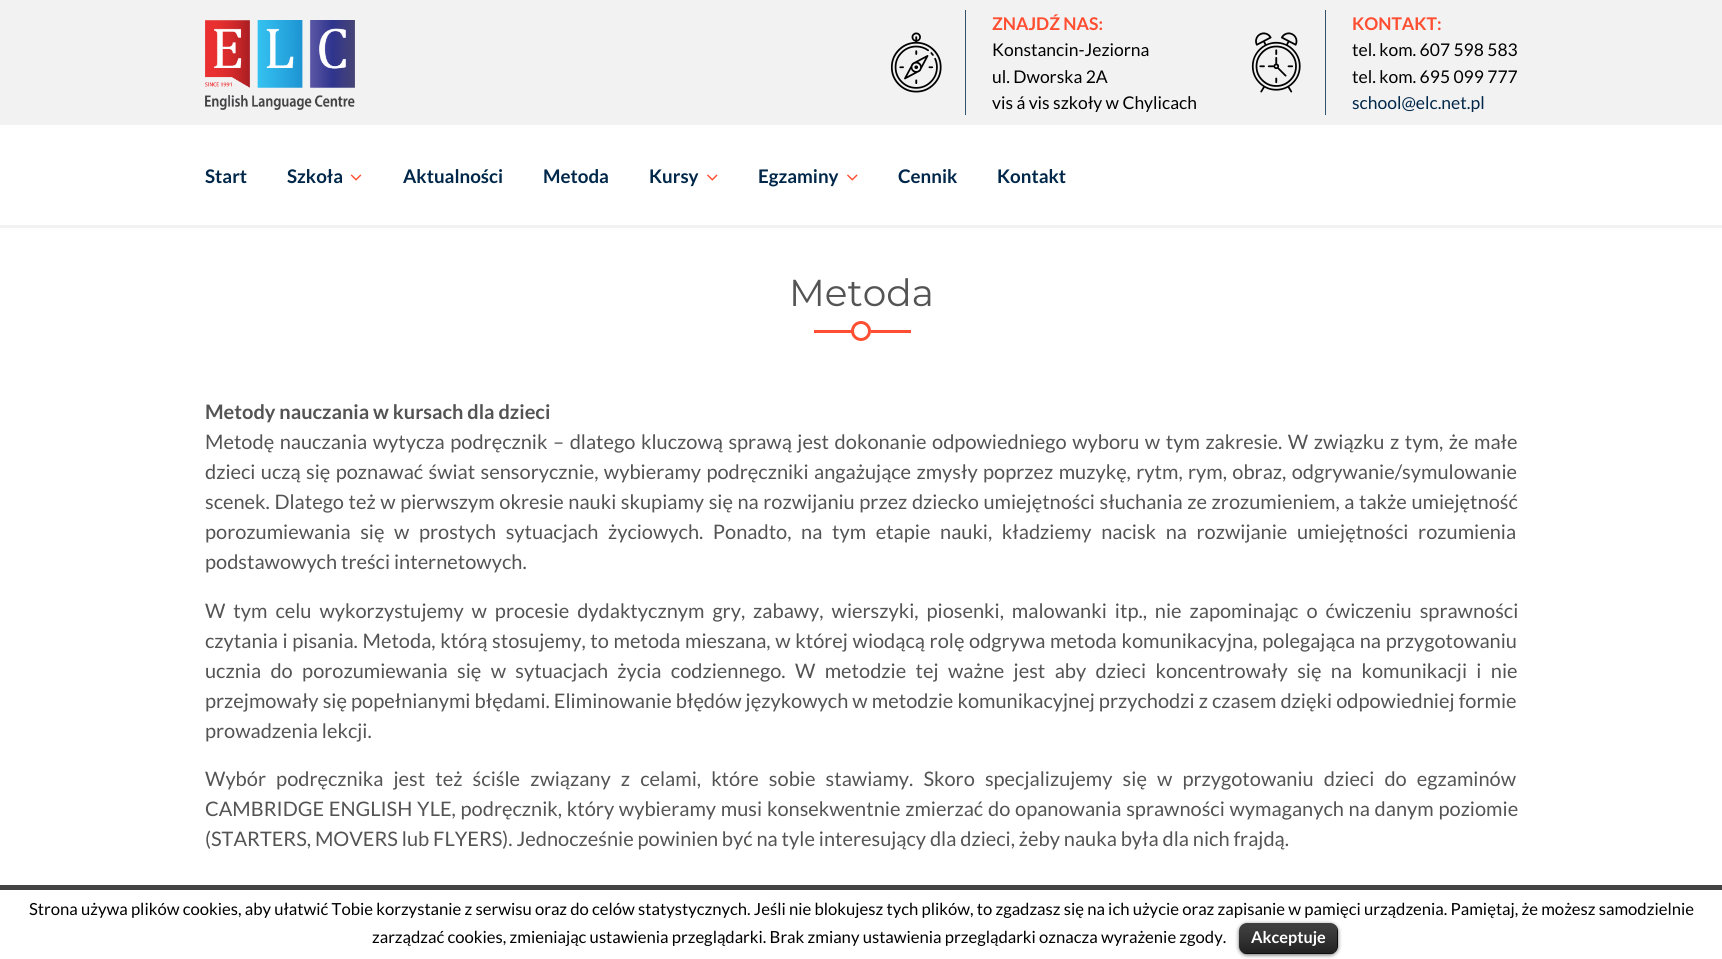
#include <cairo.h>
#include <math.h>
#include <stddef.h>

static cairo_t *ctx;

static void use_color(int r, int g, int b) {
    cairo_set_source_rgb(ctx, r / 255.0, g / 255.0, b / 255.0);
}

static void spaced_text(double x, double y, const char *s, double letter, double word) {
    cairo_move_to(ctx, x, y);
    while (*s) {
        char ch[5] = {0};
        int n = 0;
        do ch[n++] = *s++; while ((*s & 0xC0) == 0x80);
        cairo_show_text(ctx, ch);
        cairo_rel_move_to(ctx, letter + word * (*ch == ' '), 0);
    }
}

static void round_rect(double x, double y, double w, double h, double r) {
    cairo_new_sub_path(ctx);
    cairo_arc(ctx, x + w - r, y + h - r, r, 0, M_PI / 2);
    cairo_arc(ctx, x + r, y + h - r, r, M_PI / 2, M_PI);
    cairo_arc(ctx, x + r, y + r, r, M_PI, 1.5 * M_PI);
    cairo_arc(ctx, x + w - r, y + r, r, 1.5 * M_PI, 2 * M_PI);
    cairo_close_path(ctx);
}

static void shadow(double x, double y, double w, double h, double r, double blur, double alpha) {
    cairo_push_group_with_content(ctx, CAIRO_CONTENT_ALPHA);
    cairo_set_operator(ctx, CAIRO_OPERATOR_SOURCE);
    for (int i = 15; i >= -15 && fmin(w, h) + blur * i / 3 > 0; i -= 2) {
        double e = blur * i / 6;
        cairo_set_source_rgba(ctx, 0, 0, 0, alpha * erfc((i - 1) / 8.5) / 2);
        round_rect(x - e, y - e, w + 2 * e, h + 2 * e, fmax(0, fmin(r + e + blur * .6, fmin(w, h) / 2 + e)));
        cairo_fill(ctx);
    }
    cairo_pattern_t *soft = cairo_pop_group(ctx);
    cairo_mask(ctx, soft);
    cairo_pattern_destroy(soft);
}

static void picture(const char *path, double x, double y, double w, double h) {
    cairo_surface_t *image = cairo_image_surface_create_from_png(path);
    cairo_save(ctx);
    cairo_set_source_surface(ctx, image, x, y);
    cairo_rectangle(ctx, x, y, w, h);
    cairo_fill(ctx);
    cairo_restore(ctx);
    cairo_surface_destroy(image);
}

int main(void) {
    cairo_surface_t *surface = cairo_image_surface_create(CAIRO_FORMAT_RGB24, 1722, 959);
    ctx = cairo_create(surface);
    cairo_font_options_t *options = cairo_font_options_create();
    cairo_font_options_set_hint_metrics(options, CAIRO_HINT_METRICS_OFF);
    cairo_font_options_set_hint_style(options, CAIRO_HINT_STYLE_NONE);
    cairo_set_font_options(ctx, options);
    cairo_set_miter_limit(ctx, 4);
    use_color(255, 255, 255);
    cairo_paint(ctx);
    use_color(242, 242, 242);
    cairo_rectangle(ctx, 0, 225, 1722, 3);
    cairo_fill(ctx);
    cairo_rectangle(ctx, 0, 0, 1722, 125);
    cairo_fill(ctx);
    picture("img1.png", 205, 20, 150, 90);
    picture("img2.png", 890, 32, 52, 61);
    use_color(51, 82, 109);
    cairo_rectangle(ctx, 965, 10, 1, 105);
    cairo_fill(ctx);
    cairo_select_font_face(ctx, "Lato", CAIRO_FONT_SLANT_NORMAL, CAIRO_FONT_WEIGHT_BOLD);
    cairo_set_font_size(ctx, 17.5);
    use_color(255, 78, 49);
    cairo_move_to(ctx, 992, 30);
    cairo_show_text(ctx, "ZNAJDŹ NAS:");
    cairo_select_font_face(ctx, "Lato", CAIRO_FONT_SLANT_NORMAL, CAIRO_FONT_WEIGHT_NORMAL);
    use_color(0, 0, 0);
    cairo_move_to(ctx, 992, 56);
    cairo_show_text(ctx, "Konstancin-Jeziorna");
    cairo_move_to(ctx, 992, 83);
    cairo_show_text(ctx, "ul. Dworska 2A");
    cairo_move_to(ctx, 992, 109);
    cairo_show_text(ctx, "vis á vis szkoły w Chylicach");
    picture("img3.png", 1251, 32, 50, 61);
    use_color(51, 82, 109);
    cairo_rectangle(ctx, 1325, 10, 1, 105);
    cairo_fill(ctx);
    cairo_select_font_face(ctx, "Lato", CAIRO_FONT_SLANT_NORMAL, CAIRO_FONT_WEIGHT_BOLD);
    use_color(255, 78, 49);
    cairo_move_to(ctx, 1352, 30);
    cairo_show_text(ctx, "KONTAKT:");
    cairo_select_font_face(ctx, "Lato", CAIRO_FONT_SLANT_NORMAL, CAIRO_FONT_WEIGHT_NORMAL);
    use_color(0, 0, 0);
    cairo_move_to(ctx, 1352, 56);
    cairo_show_text(ctx, "tel. kom. 607 598 583");
    cairo_move_to(ctx, 1352, 83);
    cairo_show_text(ctx, "tel. kom. 695 099 777");
    use_color(0, 39, 73);
    cairo_move_to(ctx, 1352, 109);
    cairo_show_text(ctx, "school@elc.net.pl");
    cairo_select_font_face(ctx, "Lato", CAIRO_FONT_SLANT_NORMAL, CAIRO_FONT_WEIGHT_BOLD);
    cairo_set_font_size(ctx, 18.75);
    cairo_move_to(ctx, 205, 183);
    cairo_show_text(ctx, "Start");
    cairo_move_to(ctx, 287, 183);
    cairo_show_text(ctx, "Szkoła");
    picture("img4.png", 350, 174, 12, 7);
    cairo_move_to(ctx, 403, 183);
    cairo_show_text(ctx, "Aktualności");
    cairo_move_to(ctx, 543, 183);
    cairo_show_text(ctx, "Metoda");
    cairo_move_to(ctx, 649, 183);
    cairo_show_text(ctx, "Kursy");
    picture("img5.png", 707, 174, 11, 7);
    cairo_move_to(ctx, 758, 183);
    cairo_show_text(ctx, "Egzaminy");
    picture("img5.png", 847, 174, 11, 7);
    cairo_move_to(ctx, 898, 183);
    cairo_show_text(ctx, "Cennik");
    cairo_move_to(ctx, 997, 183);
    cairo_show_text(ctx, "Kontakt");
    cairo_select_font_face(ctx, "Montserrat", CAIRO_FONT_SLANT_NORMAL, CAIRO_FONT_WEIGHT_NORMAL);
    cairo_set_font_size(ctx, 37.5);
    use_color(84, 84, 84);
    cairo_move_to(ctx, 789, 306);
    cairo_show_text(ctx, "Metoda");
    cairo_new_path(ctx);
    cairo_arc(ctx, 861, 331, 8.5, 0, 2 * M_PI);
    use_color(255, 78, 49);
    cairo_set_line_width(ctx, 3);
    cairo_stroke(ctx);
    cairo_rectangle(ctx, 814, 330, 40, 3);
    cairo_fill(ctx);
    cairo_rectangle(ctx, 871, 330, 40, 3);
    cairo_fill(ctx);
    cairo_select_font_face(ctx, "Lato", CAIRO_FONT_SLANT_NORMAL, CAIRO_FONT_WEIGHT_BOLD);
    cairo_set_font_size(ctx, 20);
    use_color(84, 84, 84);
    cairo_move_to(ctx, 205, 419);
    cairo_show_text(ctx, "Metody nauczania w kursach dla dzieci");
    cairo_select_font_face(ctx, "Lato", CAIRO_FONT_SLANT_NORMAL, CAIRO_FONT_WEIGHT_NORMAL);
    spaced_text(205, 449, "Metodę nauczania wytycza podręcznik – dlatego kluczową sprawą jest dokonanie odpowiedniego wyboru w tym zakresie. W związku z tym, że małe", 0, 1.7);
    spaced_text(205, 479, "dzieci uczą się poznawać świat sensorycznie, wybieramy podręczniki angażujące zmysły poprzez muzykę, rytm, rym, obraz, odgrywanie/symulowanie", 0, 1.5);
    spaced_text(205, 509, "scenek. Dlatego też w pierwszym okresie nauki skupiamy się na rozwijaniu przez dziecko umiejętności słuchania ze zrozumieniem, a także umiejętność", 0, 0.7);
    spaced_text(205, 539, "porozumiewania się w prostych sytuacjach życiowych. Ponadto, na tym etapie nauki, kładziemy nacisk na rozwijanie umiejętności rozumienia", 0, 5.75);
    cairo_move_to(ctx, 205, 569);
    cairo_show_text(ctx, "podstawowych treści internetowych.");
    spaced_text(205, 618, "W tym celu wykorzystujemy w procesie dydaktycznym gry, zabawy, wierszyki, piosenki, malowanki itp., nie zapominając o ćwiczeniu sprawności", 0, 4.1);
    spaced_text(205, 648, "czytania i pisania. Metoda, którą stosujemy, to metoda mieszana, w której wiodącą rolę odgrywa metoda komunikacyjna, polegająca na przygotowaniu", 0, 0.8);
    spaced_text(205, 678, "ucznia do porozumiewania się w sytuacjach życia codziennego. W metodzie tej ważne jest aby dzieci koncentrowały się na komunikacji i nie", 0, 5.5);
    spaced_text(205, 708, "przejmowały się popełnianymi błędami. Eliminowanie błędów językowych w metodzie komunikacyjnej przychodzi z czasem dzięki odpowiedniej formie", 0, 0.25);
    cairo_move_to(ctx, 205, 738);
    cairo_show_text(ctx, "prowadzenia lekcji.");
    spaced_text(205, 786, "Wybór podręcznika jest też ściśle związany z celami, które sobie stawiamy. Skoro specjalizujemy się w przygotowaniu dzieci do egzaminów", 0, 6.25);
    spaced_text(205, 816, "CAMBRIDGE ENGLISH YLE, podręcznik, który wybieramy musi konsekwentnie zmierzać do opanowania sprawności wymaganych na danym poziomie", 0, 0.9);
    cairo_move_to(ctx, 205, 846);
    cairo_show_text(ctx, "(STARTERS, MOVERS lub FLYERS). Jednocześnie powinien być na tyle interesujący dla dzieci, żeby nauka była dla nich frajdą.");
    use_color(68, 68, 68);
    cairo_rectangle(ctx, 0, 885, 1722, 5);
    cairo_fill(ctx);
    cairo_set_font_size(ctx, 16.67);
    use_color(0, 0, 0);
    cairo_move_to(ctx, 29, 915);
    cairo_show_text(ctx, "Strona używa plików cookies, aby ułatwić Tobie korzystanie z serwisu oraz do celów statystycznych. Jeśli nie blokujesz tych plików, to zgadzasz się na ich użycie oraz zapisanie w pamięci urządzenia. Pamiętaj, że możesz samodzielnie");
    cairo_move_to(ctx, 372, 943);
    cairo_show_text(ctx, "zarządzać cookies, zmieniając ustawienia przeglądarki. Brak zmiany ustawienia przeglądarki oznacza wyrażenie zgody.");
    use_color(0, 0, 0);
    shadow(1239, 924, 99, 31, 8, 2, 0.6);
    use_color(0, 0, 0);
    round_rect(1239, 923, 99, 31, 8);
    cairo_fill(ctx);
    picture("img6.png", 1239, 923, 99, 31);
    cairo_set_source_rgba(ctx, 0, 0, 0, 0.25);
    cairo_rectangle(ctx, 1243, 953, 91, 1);
    cairo_fill(ctx);
    cairo_select_font_face(ctx, "Lato", CAIRO_FONT_SLANT_NORMAL, CAIRO_FONT_WEIGHT_BOLD);
    cairo_set_font_size(ctx, 16.25);
    use_color(255, 255, 255);
    cairo_move_to(ctx, 1251, 943);
    cairo_show_text(ctx, "Akceptuje");
    cairo_surface_write_to_png(surface, "result.png");
    cairo_font_options_destroy(options);
    cairo_destroy(ctx);
    cairo_surface_destroy(surface);
    return 0;
}
